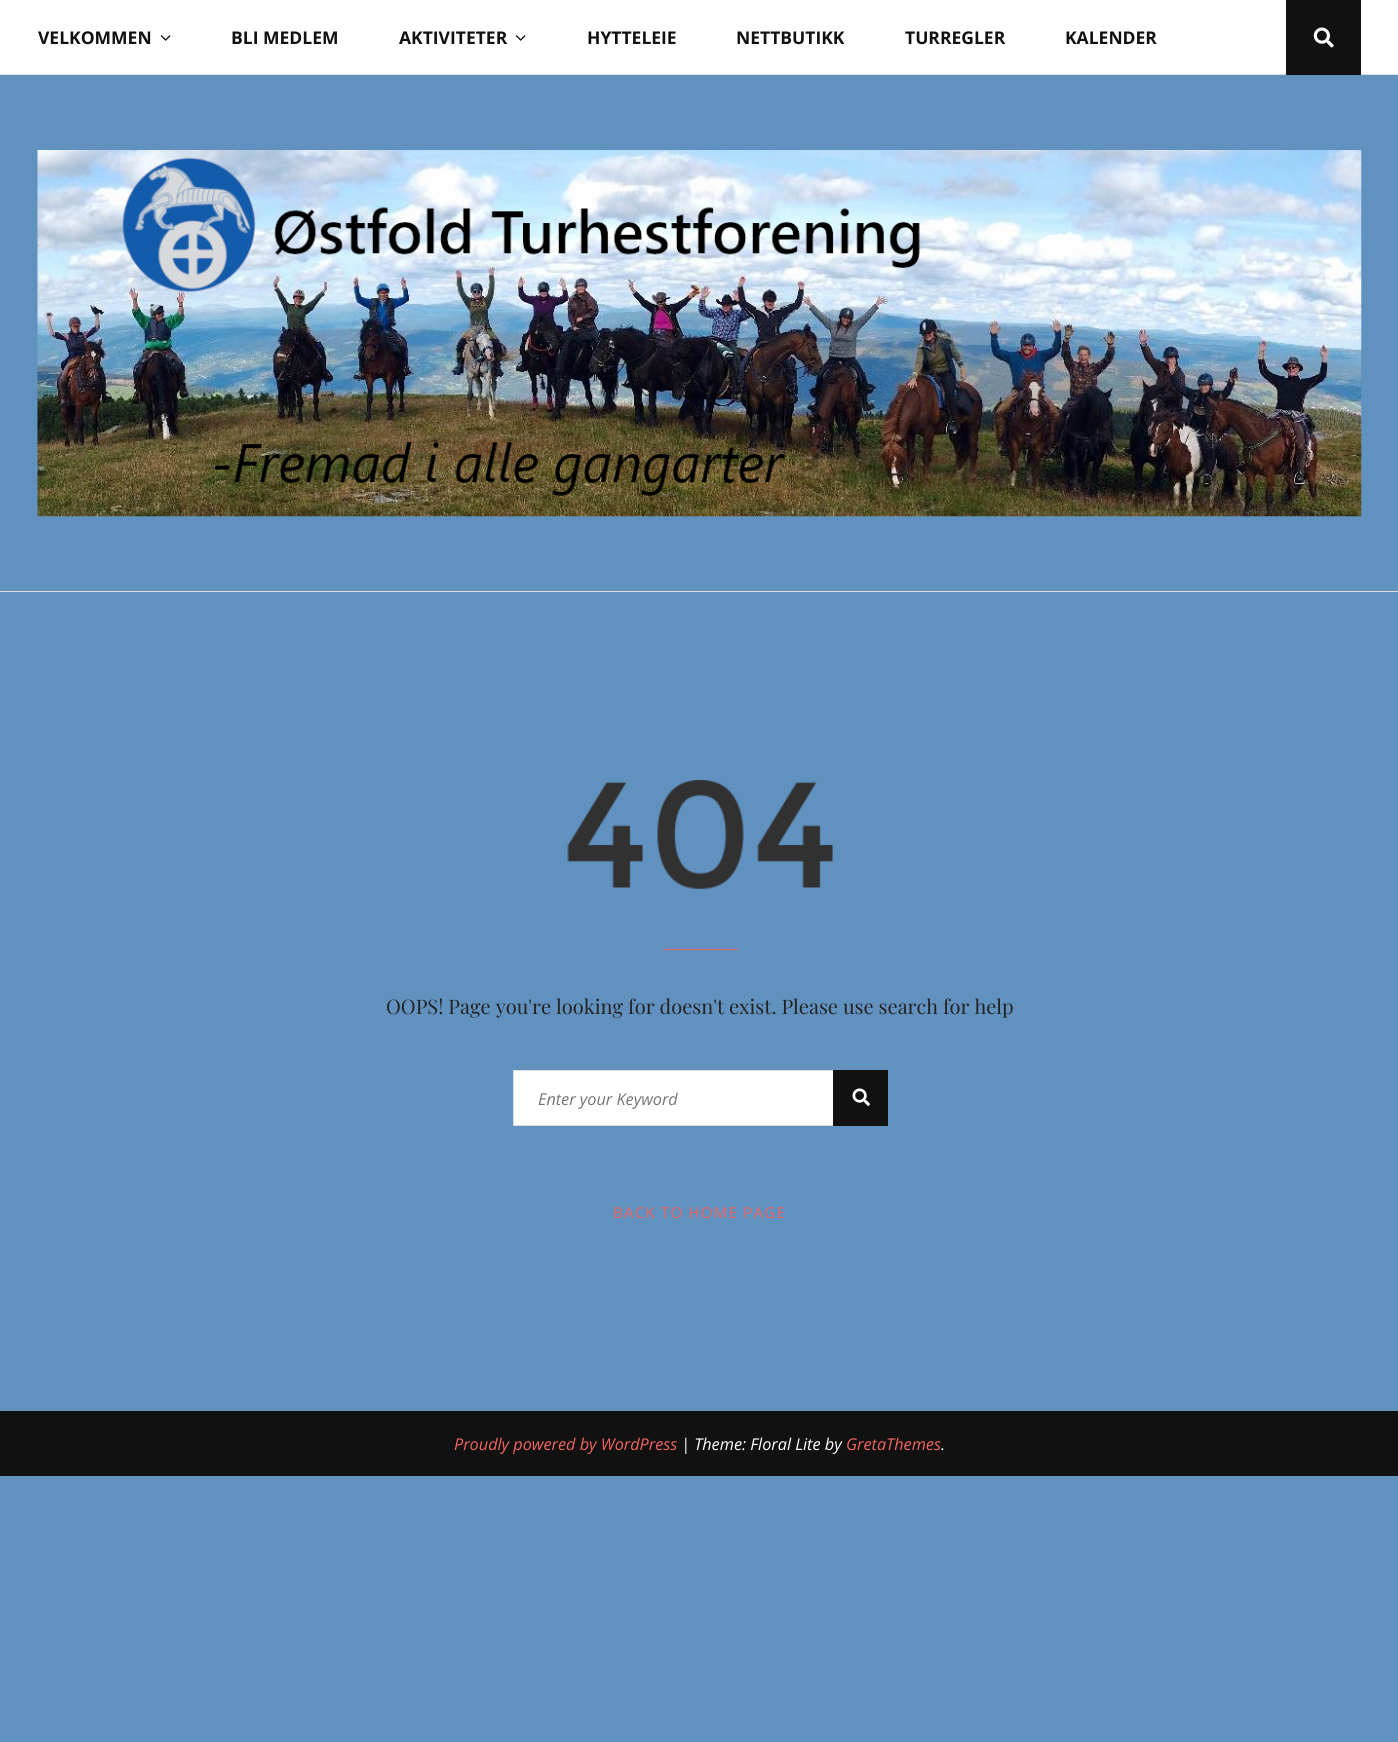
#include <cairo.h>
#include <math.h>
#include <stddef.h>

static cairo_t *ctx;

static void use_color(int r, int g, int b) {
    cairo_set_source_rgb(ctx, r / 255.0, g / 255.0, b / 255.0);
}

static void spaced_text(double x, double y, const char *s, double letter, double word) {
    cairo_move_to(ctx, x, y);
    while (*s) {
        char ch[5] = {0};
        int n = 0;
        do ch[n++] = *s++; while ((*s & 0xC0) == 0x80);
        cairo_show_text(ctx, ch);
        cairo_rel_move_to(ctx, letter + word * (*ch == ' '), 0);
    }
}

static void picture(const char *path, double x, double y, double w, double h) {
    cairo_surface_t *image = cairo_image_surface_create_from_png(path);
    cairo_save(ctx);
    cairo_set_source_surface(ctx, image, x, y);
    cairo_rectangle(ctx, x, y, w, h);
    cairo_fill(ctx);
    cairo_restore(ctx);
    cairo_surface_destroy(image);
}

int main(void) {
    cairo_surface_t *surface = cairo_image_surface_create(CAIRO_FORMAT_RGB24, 1398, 1742);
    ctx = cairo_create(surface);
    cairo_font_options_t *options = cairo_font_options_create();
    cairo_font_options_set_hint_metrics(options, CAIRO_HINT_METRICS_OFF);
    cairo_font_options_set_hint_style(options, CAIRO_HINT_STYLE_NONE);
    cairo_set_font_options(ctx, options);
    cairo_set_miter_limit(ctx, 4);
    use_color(97, 145, 191);
    cairo_paint(ctx);
    use_color(222, 222, 222);
    cairo_rectangle(ctx, 0, 591, 1398, 1);
    cairo_fill(ctx);
    use_color(255, 255, 255);
    cairo_rectangle(ctx, 0, 0, 1398, 74);
    cairo_fill(ctx);
    use_color(222, 222, 222);
    cairo_rectangle(ctx, 0, 74, 1398, 1);
    cairo_fill(ctx);
    cairo_select_font_face(ctx, "Open Sans", CAIRO_FONT_SLANT_NORMAL, CAIRO_FONT_WEIGHT_BOLD);
    cairo_set_font_size(ctx, 17.5);
    use_color(17, 17, 17);
    cairo_move_to(ctx, 38, 44);
    cairo_show_text(ctx, "VELKOMMEN");
    picture("img1.png", 160, 35, 11, 6);
    cairo_move_to(ctx, 231, 44);
    cairo_show_text(ctx, "BLI MEDLEM");
    cairo_move_to(ctx, 399, 44);
    cairo_show_text(ctx, "AKTIVITETER");
    picture("img1.png", 515, 35, 11, 6);
    cairo_move_to(ctx, 587, 44);
    cairo_show_text(ctx, "HYTTELEIE");
    cairo_move_to(ctx, 736, 44);
    cairo_show_text(ctx, "NETTBUTIKK");
    cairo_move_to(ctx, 905, 44);
    cairo_show_text(ctx, "TURREGLER");
    cairo_move_to(ctx, 1065, 44);
    cairo_show_text(ctx, "KALENDER");
    cairo_rectangle(ctx, 1286, 0, 75, 75);
    cairo_fill(ctx);
    picture("img2.png", 1313, 27, 21, 21);
    picture("img3.png", 37, 150, 1325, 367);
    picture("img4.png", 567, 780, 266, 109);
    use_color(240, 101, 96);
    cairo_rectangle(ctx, 663, 949, 75, 1);
    cairo_fill(ctx);
    cairo_select_font_face(ctx, "Playfair Display", CAIRO_FONT_SLANT_NORMAL, CAIRO_FONT_WEIGHT_NORMAL);
    cairo_set_font_size(ctx, 20);
    use_color(34, 34, 34);
    cairo_move_to(ctx, 386, 1014);
    cairo_show_text(ctx, "OOPS! Page you're looking for doesn't exist. Please use search for help");
    use_color(255, 255, 255);
    cairo_rectangle(ctx, 514, 1071, 319, 54);
    cairo_fill(ctx);
    cairo_rectangle(ctx, 513.5, 1070.5, 374, 55);
    use_color(222, 222, 222);
    cairo_set_line_width(ctx, 1);
    cairo_stroke(ctx);
    cairo_select_font_face(ctx, "Open Sans", CAIRO_FONT_SLANT_ITALIC, CAIRO_FONT_WEIGHT_NORMAL);
    cairo_set_font_size(ctx, 16.25);
    use_color(117, 117, 117);
    cairo_move_to(ctx, 538, 1105);
    cairo_show_text(ctx, "Enter your Keyword");
    use_color(17, 17, 17);
    cairo_rectangle(ctx, 833, 1070, 55, 56);
    cairo_fill(ctx);
    picture("img5.png", 852, 1088, 18, 18);
    cairo_select_font_face(ctx, "Open Sans", CAIRO_FONT_SLANT_NORMAL, CAIRO_FONT_WEIGHT_NORMAL);
    cairo_set_font_size(ctx, 15);
    use_color(240, 101, 96);
    spaced_text(613, 1218, "BACK TO HOME PAGE", 1.25, 0);
    use_color(17, 17, 17);
    cairo_rectangle(ctx, 0, 1411, 1398, 65);
    cairo_fill(ctx);
    cairo_select_font_face(ctx, "Open Sans", CAIRO_FONT_SLANT_ITALIC, CAIRO_FONT_WEIGHT_NORMAL);
    cairo_set_font_size(ctx, 16.25);
    use_color(240, 101, 96);
    cairo_move_to(ctx, 454, 1450);
    cairo_show_text(ctx, "Proudly powered by WordPress");
    use_color(255, 255, 255);
    cairo_move_to(ctx, 681, 1450);
    cairo_show_text(ctx, "| Theme: Floral Lite by");
    use_color(240, 101, 96);
    cairo_move_to(ctx, 846, 1450);
    cairo_show_text(ctx, "GretaThemes");
    use_color(255, 255, 255);
    cairo_move_to(ctx, 941, 1450);
    cairo_show_text(ctx, ".");
    cairo_surface_write_to_png(surface, "result.png");
    cairo_font_options_destroy(options);
    cairo_destroy(ctx);
    cairo_surface_destroy(surface);
    return 0;
}
